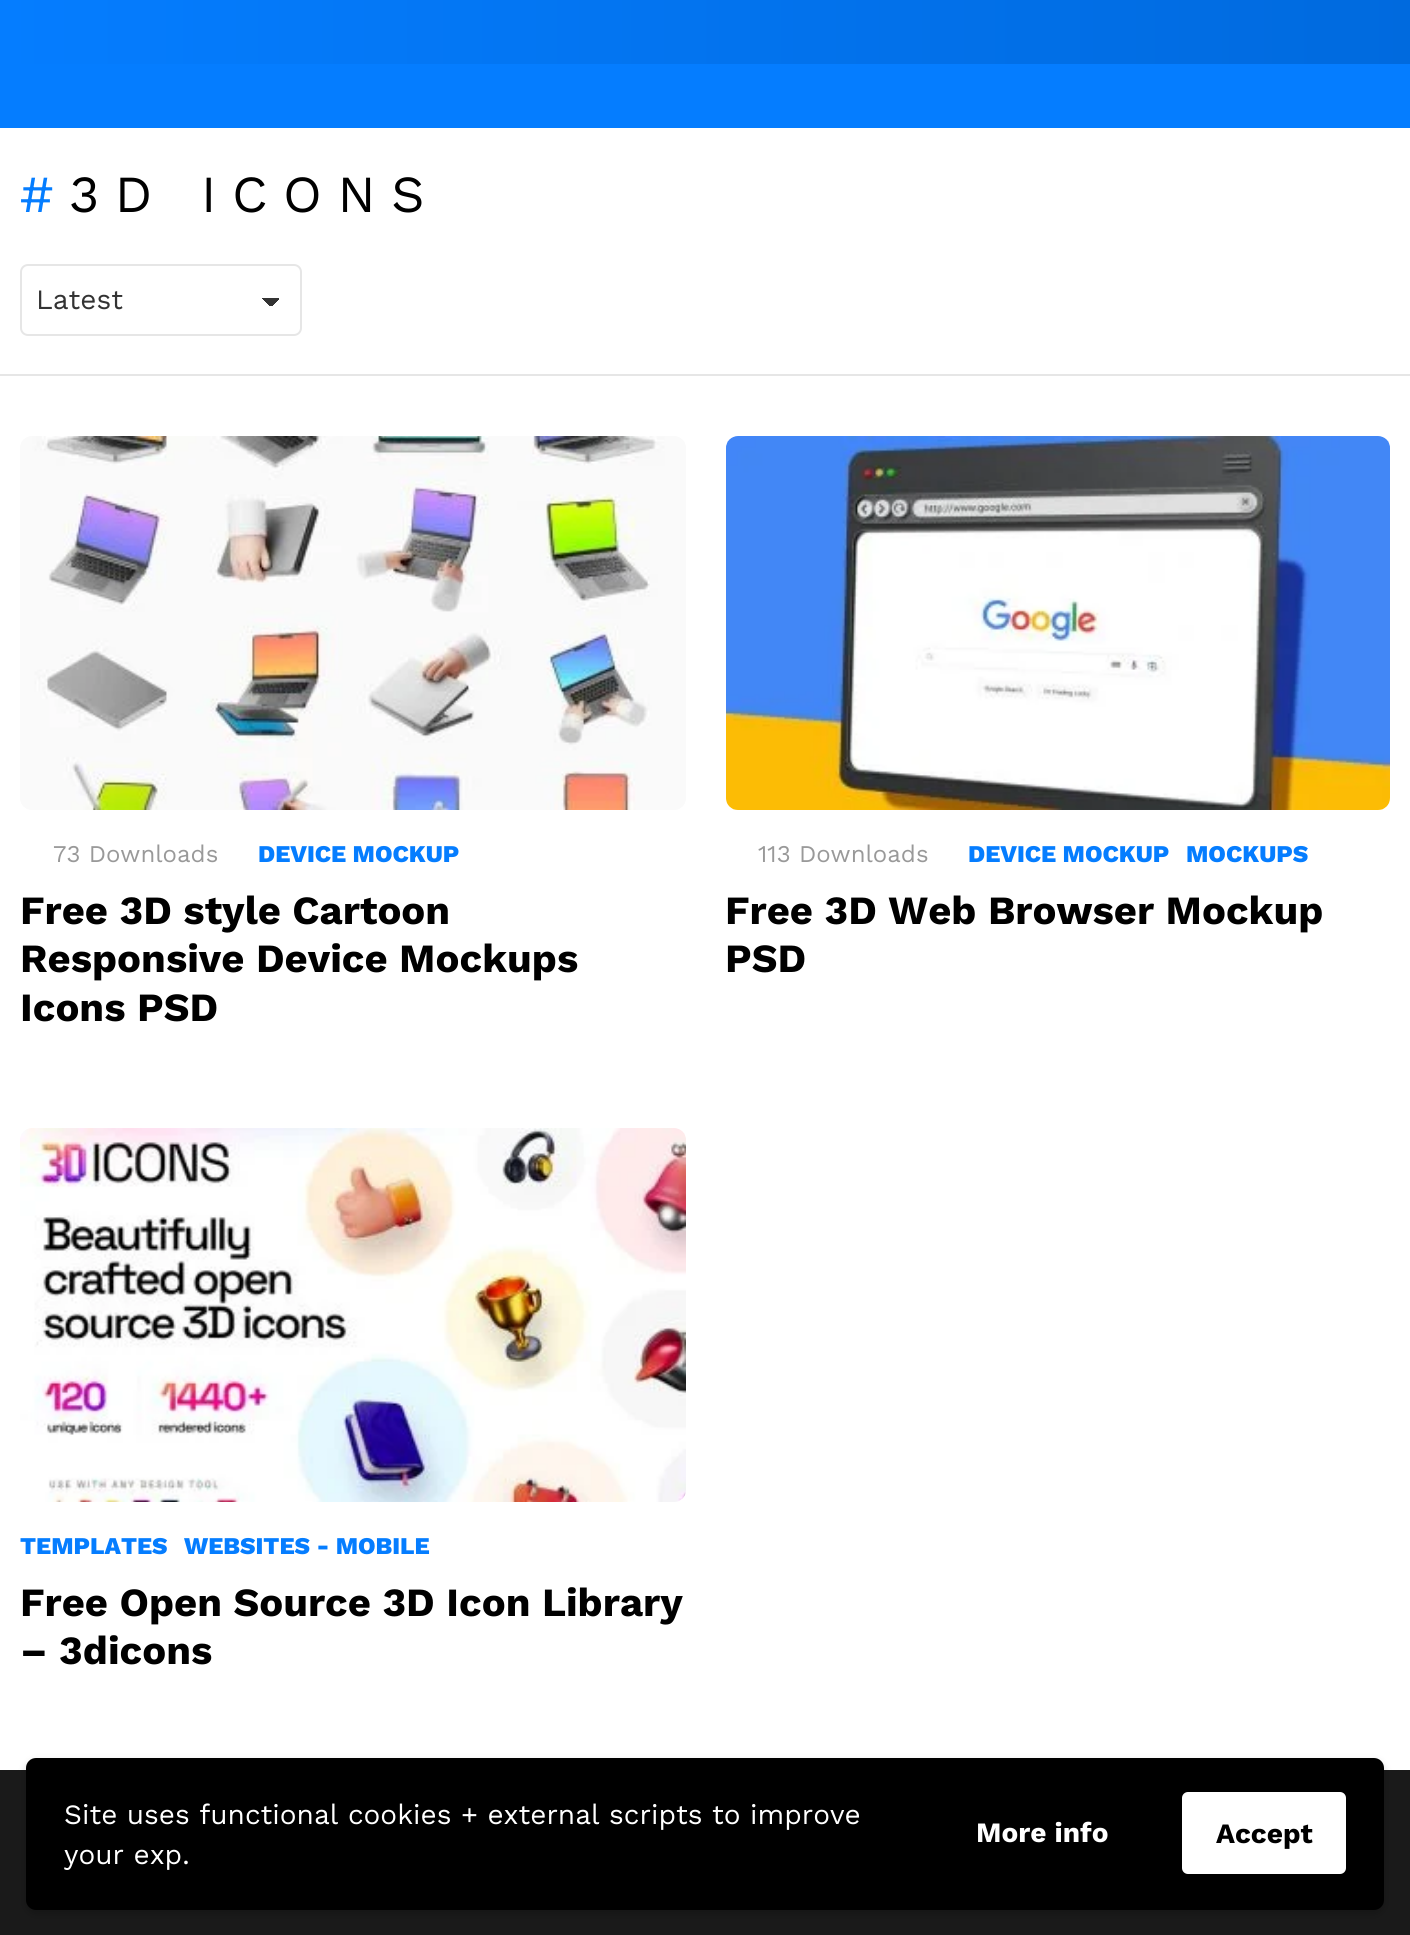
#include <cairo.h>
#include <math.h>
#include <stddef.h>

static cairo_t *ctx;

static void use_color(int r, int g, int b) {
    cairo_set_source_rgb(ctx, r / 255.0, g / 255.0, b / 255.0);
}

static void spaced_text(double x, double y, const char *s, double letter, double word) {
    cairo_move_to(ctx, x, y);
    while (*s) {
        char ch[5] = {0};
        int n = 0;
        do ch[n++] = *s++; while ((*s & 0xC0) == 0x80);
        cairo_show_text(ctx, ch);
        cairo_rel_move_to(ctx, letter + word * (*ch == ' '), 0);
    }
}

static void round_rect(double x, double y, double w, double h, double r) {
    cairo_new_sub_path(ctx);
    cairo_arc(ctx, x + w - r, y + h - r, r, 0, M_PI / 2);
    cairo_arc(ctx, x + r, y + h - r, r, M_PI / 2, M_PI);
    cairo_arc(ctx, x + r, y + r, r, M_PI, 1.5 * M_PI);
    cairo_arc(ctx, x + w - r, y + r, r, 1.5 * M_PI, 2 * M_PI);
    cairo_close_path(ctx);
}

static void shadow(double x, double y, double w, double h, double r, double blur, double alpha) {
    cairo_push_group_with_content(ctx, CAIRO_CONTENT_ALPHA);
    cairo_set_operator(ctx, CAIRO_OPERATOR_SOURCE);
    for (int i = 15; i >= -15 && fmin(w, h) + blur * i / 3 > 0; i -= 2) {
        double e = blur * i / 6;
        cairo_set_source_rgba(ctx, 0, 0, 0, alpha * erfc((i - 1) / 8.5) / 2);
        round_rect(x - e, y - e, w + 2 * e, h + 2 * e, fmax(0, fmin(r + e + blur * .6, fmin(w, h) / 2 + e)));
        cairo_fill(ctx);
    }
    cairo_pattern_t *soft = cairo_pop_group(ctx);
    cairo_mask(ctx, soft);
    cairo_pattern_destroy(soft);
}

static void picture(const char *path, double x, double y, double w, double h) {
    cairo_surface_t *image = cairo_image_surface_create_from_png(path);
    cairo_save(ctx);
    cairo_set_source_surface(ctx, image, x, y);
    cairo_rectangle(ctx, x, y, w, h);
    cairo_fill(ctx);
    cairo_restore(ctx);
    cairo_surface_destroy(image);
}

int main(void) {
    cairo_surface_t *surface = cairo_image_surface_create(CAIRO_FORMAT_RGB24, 1410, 1935);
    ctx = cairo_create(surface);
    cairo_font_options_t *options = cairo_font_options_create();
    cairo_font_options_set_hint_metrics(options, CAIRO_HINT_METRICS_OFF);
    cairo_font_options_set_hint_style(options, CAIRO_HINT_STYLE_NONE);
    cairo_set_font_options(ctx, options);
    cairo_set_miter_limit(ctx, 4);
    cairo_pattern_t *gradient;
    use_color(255, 255, 255);
    cairo_paint(ctx);
    gradient = cairo_pattern_create_linear(0, 32, 1410, 32);
    cairo_pattern_add_color_stop_rgba(gradient, 0, 0.02, 0.49, 1, 1);
    cairo_pattern_add_color_stop_rgba(gradient, 1, 0, 0.416, 0.871, 1);
    cairo_set_source(ctx, gradient);
    cairo_pattern_destroy(gradient);
    cairo_rectangle(ctx, 0, 0, 1410, 64);
    cairo_fill(ctx);
    use_color(5, 125, 255);
    cairo_rectangle(ctx, 0, 64, 1410, 64);
    cairo_fill(ctx);
    cairo_select_font_face(ctx, "Work Sans", CAIRO_FONT_SLANT_NORMAL, CAIRO_FONT_WEIGHT_NORMAL);
    cairo_set_font_size(ctx, 52);
    spaced_text(20, 212, "#", 15.5, 0);
    use_color(0, 0, 0);
    spaced_text(69, 212, "3D ICONS", 15.5, 0);
    gradient = cairo_pattern_create_linear(271, 298, 280, 307);
    cairo_pattern_add_color_stop_rgba(gradient, 0.5, 0.2, 0.2, 0.2, 1);
    cairo_pattern_add_color_stop_rgba(gradient, 0.5, 1, 1, 1, 1);
    cairo_set_source(ctx, gradient);
    cairo_pattern_destroy(gradient);
    cairo_rectangle(ctx, 270, 298, 10, 8);
    cairo_fill(ctx);
    gradient = cairo_pattern_create_linear(261, 307, 270, 298);
    cairo_pattern_add_color_stop_rgba(gradient, 0.5, 1, 1, 1, 1);
    cairo_pattern_add_color_stop_rgba(gradient, 0.5, 0.2, 0.2, 0.2, 1);
    cairo_set_source(ctx, gradient);
    cairo_pattern_destroy(gradient);
    cairo_rectangle(ctx, 260, 298, 10, 8);
    cairo_fill(ctx);
    round_rect(21, 265, 280, 70, 7);
    use_color(230, 230, 230);
    cairo_stroke(ctx);
    cairo_set_font_size(ctx, 28);
    use_color(51, 51, 51);
    cairo_move_to(ctx, 36, 309);
    cairo_show_text(ctx, "Latest");
    use_color(230, 230, 230);
    cairo_rectangle(ctx, 0, 374, 1410, 2);
    cairo_fill(ctx);
    picture("img1.png", 20, 436, 666, 374);
    cairo_set_font_size(ctx, 24);
    use_color(153, 153, 153);
    cairo_move_to(ctx, 53, 862);
    cairo_show_text(ctx, "73 Downloads");
    cairo_select_font_face(ctx, "Work Sans ExtraBold", CAIRO_FONT_SLANT_NORMAL, CAIRO_FONT_WEIGHT_NORMAL);
    use_color(5, 125, 255);
    cairo_move_to(ctx, 258, 862);
    cairo_show_text(ctx, "DEVICE MOCKUP");
    cairo_select_font_face(ctx, "Work Sans", CAIRO_FONT_SLANT_NORMAL, CAIRO_FONT_WEIGHT_BOLD);
    cairo_set_font_size(ctx, 40);
    use_color(0, 0, 0);
    cairo_move_to(ctx, 20, 924);
    cairo_show_text(ctx, "Free 3D style Cartoon");
    cairo_move_to(ctx, 20, 972);
    cairo_show_text(ctx, "Responsive Device Mockups");
    cairo_move_to(ctx, 20, 1021);
    cairo_show_text(ctx, "Icons PSD");
    picture("img2.png", 726, 436, 664, 374);
    cairo_select_font_face(ctx, "Work Sans", CAIRO_FONT_SLANT_NORMAL, CAIRO_FONT_WEIGHT_NORMAL);
    cairo_set_font_size(ctx, 24);
    use_color(153, 153, 153);
    cairo_move_to(ctx, 758, 862);
    cairo_show_text(ctx, "113 Downloads");
    cairo_select_font_face(ctx, "Work Sans ExtraBold", CAIRO_FONT_SLANT_NORMAL, CAIRO_FONT_WEIGHT_NORMAL);
    use_color(5, 125, 255);
    cairo_move_to(ctx, 968, 862);
    cairo_show_text(ctx, "DEVICE MOCKUP");
    cairo_move_to(ctx, 1186, 862);
    cairo_show_text(ctx, "MOCKUPS");
    cairo_select_font_face(ctx, "Work Sans", CAIRO_FONT_SLANT_NORMAL, CAIRO_FONT_WEIGHT_BOLD);
    cairo_set_font_size(ctx, 40);
    use_color(0, 0, 0);
    cairo_move_to(ctx, 725, 924);
    cairo_show_text(ctx, "Free 3D Web Browser Mockup");
    cairo_move_to(ctx, 725, 972);
    cairo_show_text(ctx, "PSD");
    picture("img3.png", 20, 1128, 666, 374);
    cairo_select_font_face(ctx, "Work Sans ExtraBold", CAIRO_FONT_SLANT_NORMAL, CAIRO_FONT_WEIGHT_NORMAL);
    cairo_set_font_size(ctx, 24);
    use_color(5, 125, 255);
    cairo_move_to(ctx, 20, 1554);
    cairo_show_text(ctx, "TEMPLATES");
    cairo_move_to(ctx, 184, 1554);
    cairo_show_text(ctx, "WEBSITES - MOBILE");
    cairo_select_font_face(ctx, "Work Sans", CAIRO_FONT_SLANT_NORMAL, CAIRO_FONT_WEIGHT_BOLD);
    cairo_set_font_size(ctx, 40);
    use_color(0, 0, 0);
    cairo_move_to(ctx, 20, 1616);
    cairo_show_text(ctx, "Free Open Source 3D Icon Library");
    cairo_move_to(ctx, 20, 1664);
    cairo_show_text(ctx, "– 3dicons");
    use_color(26, 26, 26);
    cairo_rectangle(ctx, 0, 1770, 1410, 165);
    cairo_fill(ctx);
    use_color(0, 0, 0);
    shadow(26, 1762, 1358, 152, 10, 4, 0.2);
    use_color(0, 0, 0);
    round_rect(26, 1758, 1358, 152, 10);
    cairo_fill(ctx);
    cairo_select_font_face(ctx, "Work Sans", CAIRO_FONT_SLANT_NORMAL, CAIRO_FONT_WEIGHT_NORMAL);
    cairo_set_font_size(ctx, 28);
    use_color(255, 255, 255);
    cairo_move_to(ctx, 64, 1824);
    cairo_show_text(ctx, "Site uses functional cookies + external scripts to improve");
    cairo_move_to(ctx, 64, 1864);
    cairo_show_text(ctx, "your exp.");
    cairo_select_font_face(ctx, "Work Sans", CAIRO_FONT_SLANT_NORMAL, CAIRO_FONT_WEIGHT_BOLD);
    cairo_move_to(ctx, 976, 1842);
    cairo_show_text(ctx, "More info");
    round_rect(1183, 1793, 162, 80, 5);
    cairo_fill_preserve(ctx);
    cairo_stroke(ctx);
    use_color(0, 0, 0);
    cairo_move_to(ctx, 1216, 1843);
    cairo_show_text(ctx, "Accept");
    cairo_surface_write_to_png(surface, "result.png");
    cairo_font_options_destroy(options);
    cairo_destroy(ctx);
    cairo_surface_destroy(surface);
    return 0;
}
